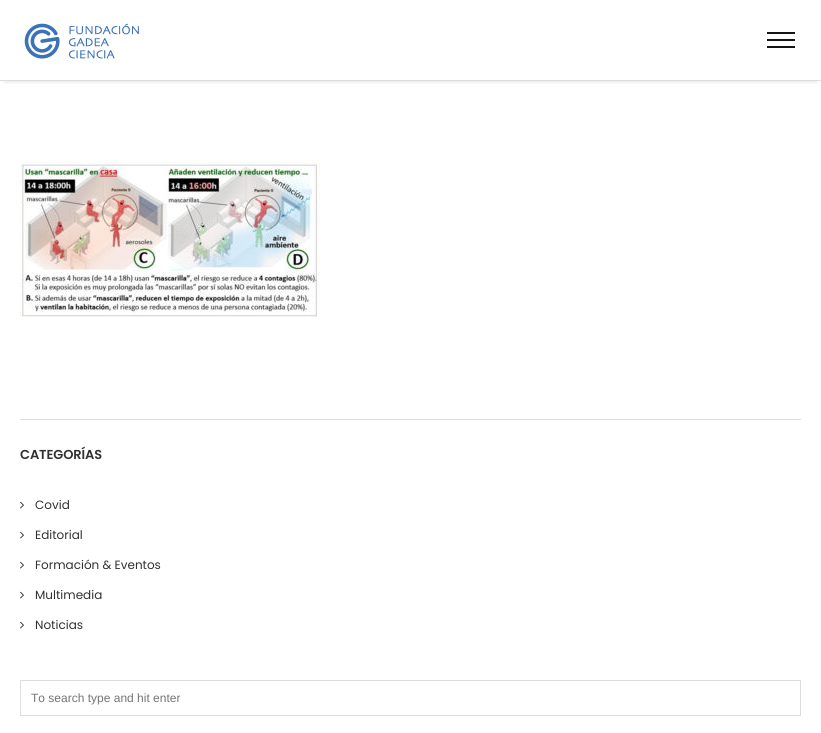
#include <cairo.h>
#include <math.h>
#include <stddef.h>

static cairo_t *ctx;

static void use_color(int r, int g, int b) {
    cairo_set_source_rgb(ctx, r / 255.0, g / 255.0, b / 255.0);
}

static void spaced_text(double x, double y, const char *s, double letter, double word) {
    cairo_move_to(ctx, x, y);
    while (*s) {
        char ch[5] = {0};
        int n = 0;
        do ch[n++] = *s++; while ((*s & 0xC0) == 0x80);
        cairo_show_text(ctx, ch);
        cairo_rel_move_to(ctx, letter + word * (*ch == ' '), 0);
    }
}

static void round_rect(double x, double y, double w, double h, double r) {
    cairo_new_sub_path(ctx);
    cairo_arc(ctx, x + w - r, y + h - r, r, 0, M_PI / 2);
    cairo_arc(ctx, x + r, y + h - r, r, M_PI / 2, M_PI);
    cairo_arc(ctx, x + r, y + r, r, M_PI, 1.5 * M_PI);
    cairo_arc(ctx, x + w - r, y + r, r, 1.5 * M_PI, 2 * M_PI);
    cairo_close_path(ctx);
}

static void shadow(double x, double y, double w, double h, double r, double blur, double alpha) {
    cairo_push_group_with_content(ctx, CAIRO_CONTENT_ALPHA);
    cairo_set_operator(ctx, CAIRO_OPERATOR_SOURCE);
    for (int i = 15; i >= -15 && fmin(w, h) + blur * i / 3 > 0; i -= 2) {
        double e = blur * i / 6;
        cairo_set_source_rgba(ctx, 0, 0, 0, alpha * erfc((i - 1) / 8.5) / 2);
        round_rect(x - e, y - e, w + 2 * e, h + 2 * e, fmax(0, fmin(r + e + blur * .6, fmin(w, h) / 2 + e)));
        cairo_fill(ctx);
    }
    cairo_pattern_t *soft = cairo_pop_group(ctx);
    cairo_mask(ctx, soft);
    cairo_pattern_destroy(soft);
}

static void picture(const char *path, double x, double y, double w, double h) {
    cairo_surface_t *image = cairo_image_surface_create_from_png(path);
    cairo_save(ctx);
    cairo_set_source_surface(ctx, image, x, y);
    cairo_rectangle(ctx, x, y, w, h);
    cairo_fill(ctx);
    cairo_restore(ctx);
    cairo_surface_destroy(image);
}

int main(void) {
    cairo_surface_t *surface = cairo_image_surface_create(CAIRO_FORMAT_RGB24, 821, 733);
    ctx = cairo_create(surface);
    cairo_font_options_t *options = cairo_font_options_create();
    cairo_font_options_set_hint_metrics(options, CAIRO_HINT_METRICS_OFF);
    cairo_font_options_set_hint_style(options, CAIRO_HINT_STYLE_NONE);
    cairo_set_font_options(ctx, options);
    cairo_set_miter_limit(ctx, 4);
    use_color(255, 255, 255);
    cairo_paint(ctx);
    cairo_save(ctx);
    cairo_rectangle(ctx, 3, 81, 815, 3);
    cairo_clip(ctx);
    use_color(0, 0, 0);
    shadow(4, 9, 813, 73, 0, 2.5, 0.1);
    cairo_restore(ctx);
    use_color(221, 221, 221);
    cairo_rectangle(ctx, 0, 80, 821, 1);
    cairo_fill(ctx);
    picture("img1.png", 24, 23, 115, 36);
    use_color(21, 21, 21);
    cairo_rectangle(ctx, 767, 39, 28, 2);
    cairo_fill(ctx);
    cairo_rectangle(ctx, 767, 32, 28, 2);
    cairo_fill(ctx);
    cairo_rectangle(ctx, 767, 46, 28, 2);
    cairo_fill(ctx);
    picture("img2.png", 20, 160, 300, 159);
    use_color(221, 221, 221);
    cairo_rectangle(ctx, 20, 419, 781, 1);
    cairo_fill(ctx);
    cairo_select_font_face(ctx, "Poppins SemiBold", CAIRO_FONT_SLANT_NORMAL, CAIRO_FONT_WEIGHT_NORMAL);
    cairo_set_font_size(ctx, 13);
    use_color(49, 49, 49);
    spaced_text(20, 459, "CATEGORÍAS", -0.1, 0);
    picture("img3.png", 20, 501, 4, 8);
    cairo_select_font_face(ctx, "Poppins", CAIRO_FONT_SLANT_NORMAL, CAIRO_FONT_WEIGHT_NORMAL);
    cairo_set_font_size(ctx, 12);
    cairo_move_to(ctx, 35, 509);
    cairo_show_text(ctx, "Covid");
    picture("img3.png", 20, 531, 4, 8);
    cairo_move_to(ctx, 35, 539);
    cairo_show_text(ctx, "Editorial");
    picture("img3.png", 20, 561, 4, 8);
    cairo_move_to(ctx, 35, 569);
    cairo_show_text(ctx, "Formación & Eventos");
    picture("img3.png", 20, 591, 4, 8);
    cairo_move_to(ctx, 35, 599);
    cairo_show_text(ctx, "Multimedia");
    picture("img3.png", 20, 621, 4, 8);
    cairo_move_to(ctx, 35, 629);
    cairo_show_text(ctx, "Noticias");
    cairo_rectangle(ctx, 20.5, 680.5, 780, 35);
    use_color(221, 221, 221);
    cairo_set_line_width(ctx, 1);
    cairo_stroke(ctx);
    cairo_select_font_face(ctx, "Liberation Sans", CAIRO_FONT_SLANT_NORMAL, CAIRO_FONT_WEIGHT_NORMAL);
    use_color(117, 117, 117);
    cairo_move_to(ctx, 31, 702);
    cairo_show_text(ctx, "To search type and hit enter");
    cairo_surface_write_to_png(surface, "result.png");
    cairo_font_options_destroy(options);
    cairo_destroy(ctx);
    cairo_surface_destroy(surface);
    return 0;
}
